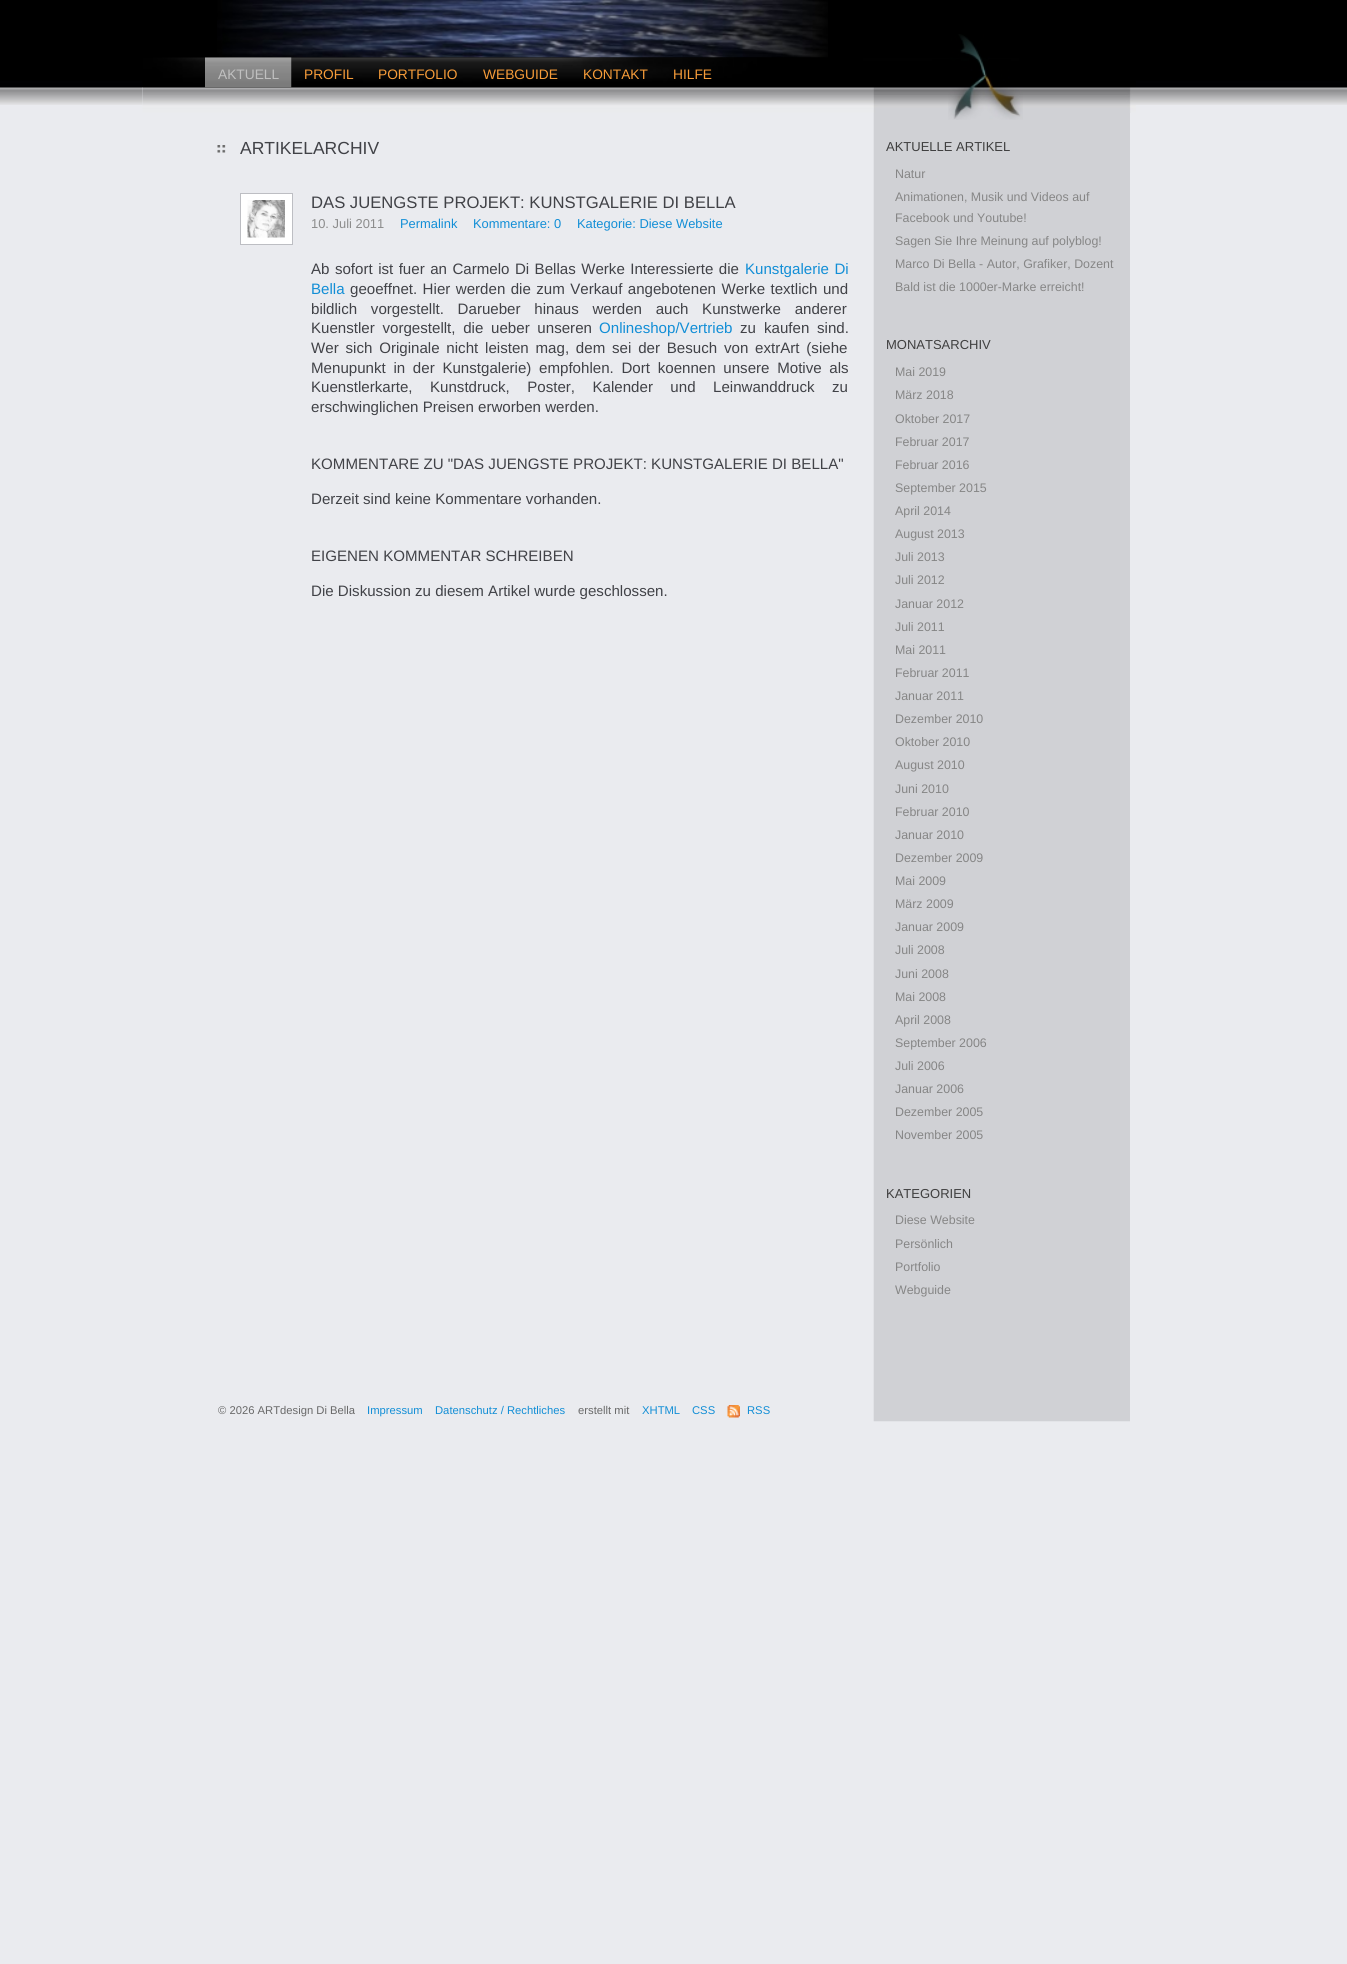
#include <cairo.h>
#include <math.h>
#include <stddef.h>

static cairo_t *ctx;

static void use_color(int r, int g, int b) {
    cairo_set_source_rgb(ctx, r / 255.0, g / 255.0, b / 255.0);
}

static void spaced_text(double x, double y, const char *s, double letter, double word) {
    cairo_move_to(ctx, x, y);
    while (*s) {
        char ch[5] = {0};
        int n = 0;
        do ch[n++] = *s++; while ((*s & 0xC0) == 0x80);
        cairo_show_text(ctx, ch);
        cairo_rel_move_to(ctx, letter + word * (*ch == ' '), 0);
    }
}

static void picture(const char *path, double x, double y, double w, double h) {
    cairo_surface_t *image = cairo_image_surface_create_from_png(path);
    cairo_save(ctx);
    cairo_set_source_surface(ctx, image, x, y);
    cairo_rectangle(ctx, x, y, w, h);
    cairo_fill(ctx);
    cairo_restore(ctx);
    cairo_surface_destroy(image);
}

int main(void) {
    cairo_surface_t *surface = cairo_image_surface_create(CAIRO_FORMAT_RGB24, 1347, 1964);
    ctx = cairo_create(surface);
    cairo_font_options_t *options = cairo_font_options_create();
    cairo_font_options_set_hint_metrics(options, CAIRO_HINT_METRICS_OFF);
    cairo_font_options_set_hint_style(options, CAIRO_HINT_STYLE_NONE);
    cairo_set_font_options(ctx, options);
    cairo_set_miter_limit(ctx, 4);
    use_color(234, 235, 239);
    cairo_paint(ctx);
    picture("img1.png", 0, 0, 1347, 105);
    picture("img2.png", 217, 0, 611, 58);
    picture("img6.png", 142, 87, 988, 1335);
    picture("img4.png", 142, 57, 994, 56);
    picture("img3.png", 948, 34, 75, 86);
    picture("img5.png", 205, 57, 87, 31);
    cairo_select_font_face(ctx, "Liberation Sans", CAIRO_FONT_SLANT_NORMAL, CAIRO_FONT_WEIGHT_NORMAL);
    cairo_set_font_size(ctx, 13.75);
    use_color(192, 192, 192);
    cairo_move_to(ctx, 218, 79);
    cairo_show_text(ctx, "AKTUELL");
    use_color(247, 156, 57);
    cairo_move_to(ctx, 304, 79);
    cairo_show_text(ctx, "PROFIL");
    cairo_move_to(ctx, 378, 79);
    cairo_show_text(ctx, "PORTFOLIO");
    cairo_move_to(ctx, 483, 79);
    cairo_show_text(ctx, "WEBGUIDE");
    cairo_move_to(ctx, 583, 79);
    cairo_show_text(ctx, "KONTAKT");
    cairo_move_to(ctx, 673, 79);
    cairo_show_text(ctx, "HILFE");
    picture("img7.png", 217, 145, 9, 8);
    cairo_set_font_size(ctx, 17.5);
    use_color(65, 66, 71);
    cairo_move_to(ctx, 240, 154);
    cairo_show_text(ctx, "ARTIKELARCHIV");
    use_color(255, 255, 255);
    cairo_rectangle(ctx, 240.5, 193.5, 52, 51);
    cairo_fill_preserve(ctx);
    use_color(189, 190, 195);
    cairo_set_line_width(ctx, 1);
    cairo_stroke(ctx);
    picture("img8.png", 247, 200, 38, 38);
    cairo_set_font_size(ctx, 16.65);
    use_color(65, 66, 71);
    cairo_move_to(ctx, 311, 208);
    cairo_show_text(ctx, "DAS JUENGSTE PROJEKT: KUNSTGALERIE DI BELLA");
    cairo_set_font_size(ctx, 12.9);
    use_color(140, 140, 140);
    cairo_move_to(ctx, 311, 228);
    cairo_show_text(ctx, "10. Juli 2011");
    use_color(18, 142, 214);
    cairo_move_to(ctx, 400, 228);
    cairo_show_text(ctx, "Permalink");
    cairo_move_to(ctx, 473, 228);
    cairo_show_text(ctx, "Kommentare: 0");
    cairo_move_to(ctx, 577, 228);
    cairo_show_text(ctx, "Kategorie: Diese Website");
    cairo_set_font_size(ctx, 15.1);
    use_color(65, 66, 71);
    spaced_text(311, 274, "Ab sofort ist fuer an Carmelo Di Bellas Werke Interessierte die", 0, 1.25);
    use_color(18, 142, 214);
    spaced_text(745, 274, "Kunstgalerie Di", 0, 1.25);
    cairo_move_to(ctx, 311, 294);
    cairo_show_text(ctx, "Bella");
    use_color(65, 66, 71);
    spaced_text(350, 294, "geoeffnet. Hier werden die zum Verkauf angebotenen Werke textlich und", 0, 1.25);
    spaced_text(311, 314, "bildlich vorgestellt. Darueber hinaus werden auch Kunstwerke anderer", 0, 9.5);
    spaced_text(311, 333, "Kuenstler vorgestellt, die ueber unseren", 0, 3.5);
    use_color(18, 142, 214);
    cairo_move_to(ctx, 599, 333);
    cairo_show_text(ctx, "Onlineshop/Vertrieb");
    use_color(65, 66, 71);
    cairo_move_to(ctx, 740, 333);
    cairo_show_text(ctx, "zu");
    spaced_text(764, 333, "kaufen sind.", 0, 3.5);
    spaced_text(311, 353, "Wer sich Originale nicht leisten mag, dem sei der Besuch von extrArt (siehe", 0, 2.6);
    spaced_text(311, 373, "Menupunkt in der Kunstgalerie) empfohlen. Dort koennen unsere Motive als", 0, 3.5);
    spaced_text(311, 392, "Kuenstlerkarte, Kunstdruck, Poster, Kalender und Leinwanddruck zu", 0, 13.25);
    cairo_move_to(ctx, 311, 412);
    cairo_show_text(ctx, "erschwinglichen Preisen erworben werden.");
    cairo_move_to(ctx, 311, 469);
    cairo_show_text(ctx, "KOMMENTARE ZU \"DAS JUENGSTE PROJEKT: KUNSTGALERIE DI BELLA\"");
    cairo_move_to(ctx, 311, 504);
    cairo_show_text(ctx, "Derzeit sind keine Kommentare vorhanden.");
    cairo_move_to(ctx, 311, 561);
    cairo_show_text(ctx, "EIGENEN KOMMENTAR SCHREIBEN");
    cairo_move_to(ctx, 311, 596);
    cairo_show_text(ctx, "Die Diskussion zu diesem Artikel wurde geschlossen.");
    cairo_set_font_size(ctx, 13);
    use_color(63, 63, 63);
    cairo_move_to(ctx, 886, 151);
    cairo_show_text(ctx, "AKTUELLE ARTIKEL");
    cairo_set_font_size(ctx, 12.4);
    use_color(134, 134, 134);
    cairo_move_to(ctx, 895, 178);
    cairo_show_text(ctx, "Natur");
    cairo_move_to(ctx, 895, 201);
    cairo_show_text(ctx, "Animationen, Musik und Videos auf");
    cairo_move_to(ctx, 895, 222);
    cairo_show_text(ctx, "Facebook und Youtube!");
    cairo_move_to(ctx, 895, 245);
    cairo_show_text(ctx, "Sagen Sie Ihre Meinung auf polyblog!");
    cairo_move_to(ctx, 895, 268);
    cairo_show_text(ctx, "Marco Di Bella - Autor, Grafiker, Dozent");
    cairo_move_to(ctx, 895, 291);
    cairo_show_text(ctx, "Bald ist die 1000er-Marke erreicht!");
    cairo_set_font_size(ctx, 13);
    use_color(63, 63, 63);
    cairo_move_to(ctx, 886, 349);
    cairo_show_text(ctx, "MONATSARCHIV");
    cairo_set_font_size(ctx, 12.4);
    use_color(134, 134, 134);
    cairo_move_to(ctx, 895, 376);
    cairo_show_text(ctx, "Mai 2019");
    cairo_move_to(ctx, 895, 399);
    cairo_show_text(ctx, "März 2018");
    cairo_move_to(ctx, 895, 423);
    cairo_show_text(ctx, "Oktober 2017");
    cairo_move_to(ctx, 895, 446);
    cairo_show_text(ctx, "Februar 2017");
    cairo_move_to(ctx, 895, 469);
    cairo_show_text(ctx, "Februar 2016");
    cairo_move_to(ctx, 895, 492);
    cairo_show_text(ctx, "September 2015");
    cairo_move_to(ctx, 895, 515);
    cairo_show_text(ctx, "April 2014");
    cairo_move_to(ctx, 895, 538);
    cairo_show_text(ctx, "August 2013");
    cairo_move_to(ctx, 895, 561);
    cairo_show_text(ctx, "Juli 2013");
    cairo_move_to(ctx, 895, 584);
    cairo_show_text(ctx, "Juli 2012");
    cairo_move_to(ctx, 895, 608);
    cairo_show_text(ctx, "Januar 2012");
    cairo_move_to(ctx, 895, 631);
    cairo_show_text(ctx, "Juli 2011");
    cairo_move_to(ctx, 895, 654);
    cairo_show_text(ctx, "Mai 2011");
    cairo_move_to(ctx, 895, 677);
    cairo_show_text(ctx, "Februar 2011");
    cairo_move_to(ctx, 895, 700);
    cairo_show_text(ctx, "Januar 2011");
    cairo_move_to(ctx, 895, 723);
    cairo_show_text(ctx, "Dezember 2010");
    cairo_move_to(ctx, 895, 746);
    cairo_show_text(ctx, "Oktober 2010");
    cairo_move_to(ctx, 895, 769);
    cairo_show_text(ctx, "August 2010");
    cairo_move_to(ctx, 895, 793);
    cairo_show_text(ctx, "Juni 2010");
    cairo_move_to(ctx, 895, 816);
    cairo_show_text(ctx, "Februar 2010");
    cairo_move_to(ctx, 895, 839);
    cairo_show_text(ctx, "Januar 2010");
    cairo_move_to(ctx, 895, 862);
    cairo_show_text(ctx, "Dezember 2009");
    cairo_move_to(ctx, 895, 885);
    cairo_show_text(ctx, "Mai 2009");
    cairo_move_to(ctx, 895, 908);
    cairo_show_text(ctx, "März 2009");
    cairo_move_to(ctx, 895, 931);
    cairo_show_text(ctx, "Januar 2009");
    cairo_move_to(ctx, 895, 954);
    cairo_show_text(ctx, "Juli 2008");
    cairo_move_to(ctx, 895, 978);
    cairo_show_text(ctx, "Juni 2008");
    cairo_move_to(ctx, 895, 1001);
    cairo_show_text(ctx, "Mai 2008");
    cairo_move_to(ctx, 895, 1024);
    cairo_show_text(ctx, "April 2008");
    cairo_move_to(ctx, 895, 1047);
    cairo_show_text(ctx, "September 2006");
    cairo_move_to(ctx, 895, 1070);
    cairo_show_text(ctx, "Juli 2006");
    cairo_move_to(ctx, 895, 1093);
    cairo_show_text(ctx, "Januar 2006");
    cairo_move_to(ctx, 895, 1116);
    cairo_show_text(ctx, "Dezember 2005");
    cairo_move_to(ctx, 895, 1139);
    cairo_show_text(ctx, "November 2005");
    cairo_set_font_size(ctx, 13);
    use_color(63, 63, 63);
    cairo_move_to(ctx, 886, 1198);
    cairo_show_text(ctx, "KATEGORIEN");
    cairo_set_font_size(ctx, 12.4);
    use_color(134, 134, 134);
    cairo_move_to(ctx, 895, 1224);
    cairo_show_text(ctx, "Diese Website");
    cairo_move_to(ctx, 895, 1248);
    cairo_show_text(ctx, "Persönlich");
    cairo_move_to(ctx, 895, 1271);
    cairo_show_text(ctx, "Portfolio");
    cairo_move_to(ctx, 895, 1294);
    cairo_show_text(ctx, "Webguide");
    cairo_set_font_size(ctx, 11.25);
    use_color(105, 105, 105);
    cairo_move_to(ctx, 218, 1414);
    cairo_show_text(ctx, "© 2026 ARTdesign Di Bella");
    use_color(18, 142, 214);
    cairo_move_to(ctx, 367, 1414);
    cairo_show_text(ctx, "Impressum");
    cairo_move_to(ctx, 435, 1414);
    cairo_show_text(ctx, "Datenschutz / Rechtliches");
    use_color(105, 105, 105);
    cairo_move_to(ctx, 578, 1414);
    cairo_show_text(ctx, "erstellt mit");
    use_color(18, 142, 214);
    cairo_move_to(ctx, 642, 1414);
    cairo_show_text(ctx, "XHTML");
    cairo_move_to(ctx, 692, 1414);
    cairo_show_text(ctx, "CSS");
    picture("img9.png", 727, 1405, 13, 13);
    cairo_move_to(ctx, 747, 1414);
    cairo_show_text(ctx, "RSS");
    cairo_surface_write_to_png(surface, "result.png");
    cairo_font_options_destroy(options);
    cairo_destroy(ctx);
    cairo_surface_destroy(surface);
    return 0;
}
